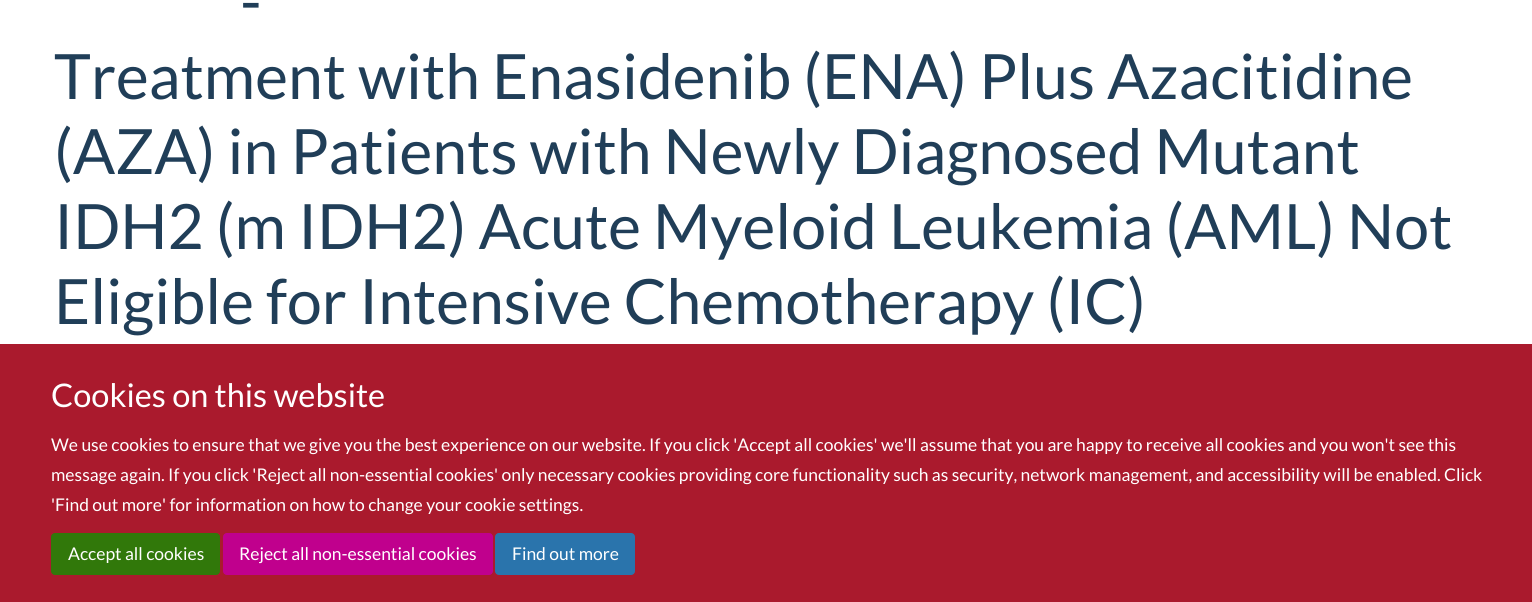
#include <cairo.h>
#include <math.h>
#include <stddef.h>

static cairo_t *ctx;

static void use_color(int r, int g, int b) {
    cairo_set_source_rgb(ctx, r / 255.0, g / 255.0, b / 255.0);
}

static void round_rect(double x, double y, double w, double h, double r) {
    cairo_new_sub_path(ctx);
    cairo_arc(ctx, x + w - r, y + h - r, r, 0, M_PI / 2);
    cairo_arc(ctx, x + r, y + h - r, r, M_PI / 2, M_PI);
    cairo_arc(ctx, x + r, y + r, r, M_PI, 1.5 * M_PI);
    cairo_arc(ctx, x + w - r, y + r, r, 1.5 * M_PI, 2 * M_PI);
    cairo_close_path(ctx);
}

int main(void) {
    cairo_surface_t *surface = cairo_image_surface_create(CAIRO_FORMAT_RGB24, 1532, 602);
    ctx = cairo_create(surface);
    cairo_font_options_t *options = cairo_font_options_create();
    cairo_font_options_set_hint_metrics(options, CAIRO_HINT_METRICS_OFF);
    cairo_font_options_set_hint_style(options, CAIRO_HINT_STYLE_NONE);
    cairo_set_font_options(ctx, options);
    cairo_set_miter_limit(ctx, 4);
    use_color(255, 255, 255);
    cairo_paint(ctx);
    cairo_select_font_face(ctx, "Lato", CAIRO_FONT_SLANT_NORMAL, CAIRO_FONT_WEIGHT_NORMAL);
    cairo_set_font_size(ctx, 62.5);
    use_color(32, 62, 88);
    cairo_move_to(ctx, 240, 24);
    cairo_show_text(ctx, "-");
    cairo_move_to(ctx, 54, 99);
    cairo_show_text(ctx, "Treatment with Enasidenib (ENA) Plus Azacitidine");
    cairo_move_to(ctx, 54, 174);
    cairo_show_text(ctx, "(AZA) in Patients with Newly Diagnosed Mutant");
    cairo_move_to(ctx, 54, 249);
    cairo_show_text(ctx, "IDH2 (m IDH2) Acute Myeloid Leukemia (AML) Not");
    cairo_move_to(ctx, 54, 324);
    cairo_show_text(ctx, "Eligible for Intensive Chemotherapy (IC)");
    use_color(170, 26, 45);
    cairo_rectangle(ctx, 0, 344, 1532, 258);
    cairo_fill(ctx);
    cairo_set_font_size(ctx, 32.5);
    use_color(255, 255, 255);
    cairo_move_to(ctx, 51, 407);
    cairo_show_text(ctx, "Cookies on this website");
    cairo_set_font_size(ctx, 17.5);
    cairo_move_to(ctx, 51, 451);
    cairo_show_text(ctx, "We use cookies to ensure that we give you the best experience on our website. If you click 'Accept all cookies' we'll assume that you are happy to receive all cookies and you won't see this");
    cairo_move_to(ctx, 51, 481);
    cairo_show_text(ctx, "message again. If you click 'Reject all non-essential cookies' only necessary cookies providing core functionality such as security, network management, and accessibility will be enabled. Click");
    cairo_move_to(ctx, 51, 511);
    cairo_show_text(ctx, "'Find out more' for information on how to change your cookie settings.");
    use_color(49, 120, 10);
    round_rect(51.5, 533.5, 168, 41, 3.5);
    cairo_fill_preserve(ctx);
    cairo_set_line_width(ctx, 1);
    cairo_stroke(ctx);
    use_color(255, 255, 255);
    cairo_move_to(ctx, 68, 560);
    cairo_show_text(ctx, "Accept all cookies");
    use_color(192, 0, 141);
    round_rect(223.5, 533.5, 269, 41, 3.5);
    cairo_fill_preserve(ctx);
    cairo_stroke(ctx);
    use_color(255, 255, 255);
    cairo_move_to(ctx, 239, 560);
    cairo_show_text(ctx, "Reject all non-essential cookies");
    use_color(42, 116, 172);
    round_rect(495.5, 533.5, 139, 41, 3.5);
    cairo_fill_preserve(ctx);
    cairo_stroke(ctx);
    use_color(255, 255, 255);
    cairo_move_to(ctx, 512, 560);
    cairo_show_text(ctx, "Find out more");
    cairo_surface_write_to_png(surface, "result.png");
    cairo_font_options_destroy(options);
    cairo_destroy(ctx);
    cairo_surface_destroy(surface);
    return 0;
}
